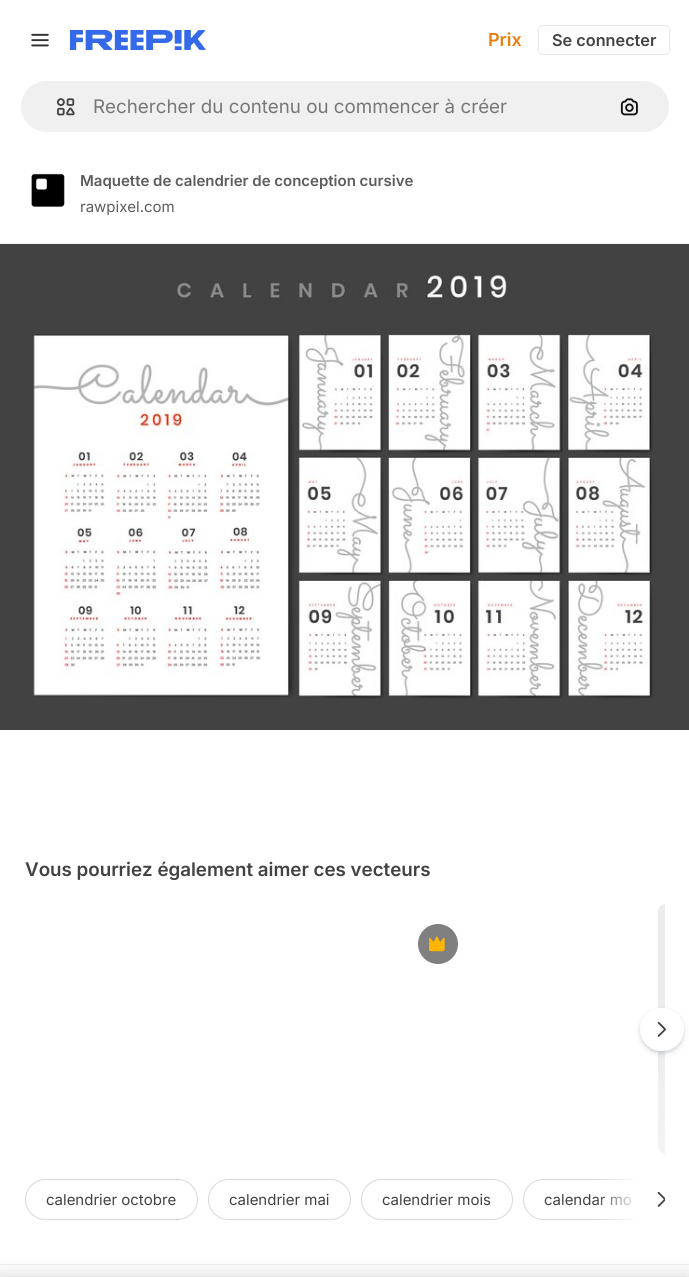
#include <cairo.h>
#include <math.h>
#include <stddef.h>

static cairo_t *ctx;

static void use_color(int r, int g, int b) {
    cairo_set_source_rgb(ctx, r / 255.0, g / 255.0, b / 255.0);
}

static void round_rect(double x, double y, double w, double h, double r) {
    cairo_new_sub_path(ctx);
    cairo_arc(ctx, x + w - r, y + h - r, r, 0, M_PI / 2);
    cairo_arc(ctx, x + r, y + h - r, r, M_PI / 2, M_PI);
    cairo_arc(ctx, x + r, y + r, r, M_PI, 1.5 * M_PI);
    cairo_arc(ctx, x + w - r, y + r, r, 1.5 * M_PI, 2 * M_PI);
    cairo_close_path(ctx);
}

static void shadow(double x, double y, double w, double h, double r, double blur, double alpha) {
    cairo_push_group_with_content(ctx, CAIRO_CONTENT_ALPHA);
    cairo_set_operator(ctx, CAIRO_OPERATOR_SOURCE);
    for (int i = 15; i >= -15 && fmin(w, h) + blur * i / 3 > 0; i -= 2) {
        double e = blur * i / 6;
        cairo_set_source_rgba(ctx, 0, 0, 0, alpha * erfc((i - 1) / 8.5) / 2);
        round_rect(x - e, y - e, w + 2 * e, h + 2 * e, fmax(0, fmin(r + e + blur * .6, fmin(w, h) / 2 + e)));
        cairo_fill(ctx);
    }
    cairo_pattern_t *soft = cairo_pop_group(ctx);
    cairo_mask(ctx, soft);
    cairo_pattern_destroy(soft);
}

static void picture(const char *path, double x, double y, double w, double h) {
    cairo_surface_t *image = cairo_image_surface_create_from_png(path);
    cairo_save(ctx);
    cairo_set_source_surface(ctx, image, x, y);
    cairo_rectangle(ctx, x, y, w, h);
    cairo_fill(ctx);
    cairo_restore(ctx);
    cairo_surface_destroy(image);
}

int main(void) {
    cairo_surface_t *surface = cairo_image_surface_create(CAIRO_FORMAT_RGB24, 689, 1277);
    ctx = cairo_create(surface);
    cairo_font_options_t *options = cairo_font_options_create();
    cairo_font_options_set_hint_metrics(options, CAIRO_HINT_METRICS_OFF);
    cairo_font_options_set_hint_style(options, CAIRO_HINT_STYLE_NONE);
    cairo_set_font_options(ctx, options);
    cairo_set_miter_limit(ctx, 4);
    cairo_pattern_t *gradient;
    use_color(255, 255, 255);
    cairo_paint(ctx);
    picture("img1.png", 31, 33, 18, 14);
    picture("img2.png", 70, 30, 136, 20);
    cairo_select_font_face(ctx, "Inter SemiBold", CAIRO_FONT_SLANT_NORMAL, CAIRO_FONT_WEIGHT_NORMAL);
    cairo_set_font_size(ctx, 18);
    use_color(234, 126, 17);
    cairo_move_to(ctx, 488, 46);
    cairo_show_text(ctx, "Prix");
    round_rect(538.5, 25.5, 131, 29, 4.5);
    use_color(231, 231, 231);
    cairo_set_line_width(ctx, 1);
    cairo_stroke(ctx);
    cairo_set_font_size(ctx, 16.25);
    use_color(66, 66, 66);
    cairo_move_to(ctx, 552, 46);
    cairo_show_text(ctx, "Se connecter");
    use_color(240, 240, 240);
    round_rect(20.5, 80.5, 649, 52, 26);
    cairo_fill_preserve(ctx);
    use_color(255, 255, 255);
    cairo_stroke(ctx);
    picture("img3.png", 56, 98, 19, 18);
    cairo_select_font_face(ctx, "Inter", CAIRO_FONT_SLANT_NORMAL, CAIRO_FONT_WEIGHT_NORMAL);
    cairo_set_font_size(ctx, 18.75);
    use_color(119, 119, 119);
    cairo_move_to(ctx, 93, 113);
    cairo_show_text(ctx, "Rechercher du contenu ou commencer à créer");
    picture("img4.png", 620, 98, 18, 18);
    picture("img5.png", 31, 173, 34, 34);
    cairo_select_font_face(ctx, "Inter SemiBold", CAIRO_FONT_SLANT_NORMAL, CAIRO_FONT_WEIGHT_NORMAL);
    cairo_set_font_size(ctx, 15);
    use_color(92, 92, 92);
    cairo_move_to(ctx, 80, 186);
    cairo_show_text(ctx, "Maquette de calendrier de conception cursive");
    cairo_select_font_face(ctx, "Inter", CAIRO_FONT_SLANT_NORMAL, CAIRO_FONT_WEIGHT_NORMAL);
    cairo_move_to(ctx, 80, 212);
    cairo_show_text(ctx, "rawpixel.com");
    picture("img6.png", 0, 243, 689, 487);
    cairo_select_font_face(ctx, "Inter SemiBold", CAIRO_FONT_SLANT_NORMAL, CAIRO_FONT_WEIGHT_NORMAL);
    cairo_set_font_size(ctx, 18.75);
    use_color(66, 66, 66);
    cairo_move_to(ctx, 25, 876);
    cairo_show_text(ctx, "Vous pourriez également aimer ces vecteurs");
    use_color(128, 128, 128);
    cairo_new_path(ctx);
    cairo_arc(ctx, 438, 944, 20, 0, 2 * M_PI);
    cairo_fill(ctx);
    picture("img7.png", 429, 936, 16, 16);
    gradient = cairo_pattern_create_linear(647, 934, 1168, 1124);
    cairo_pattern_add_color_stop_rgba(gradient, 0.08, 0.925, 0.925, 0.925, 1);
    cairo_pattern_add_color_stop_rgba(gradient, 0.18, 0.961, 0.961, 0.961, 1);
    cairo_pattern_add_color_stop_rgba(gradient, 0.33, 0.925, 0.925, 0.925, 1);
    cairo_set_source(ctx, gradient);
    cairo_pattern_destroy(gradient);
    cairo_new_path(ctx);
    cairo_move_to(ctx, 666, 904);
    cairo_line_to(ctx, 665, 904);
    cairo_line_to(ctx, 665, 1154);
    cairo_line_to(ctx, 666, 1154);
    cairo_curve_to(ctx, 661.5, 1154, 658, 1150.5, 658, 1146);
    cairo_line_to(ctx, 658, 912);
    cairo_curve_to(ctx, 658, 907.5, 661.5, 904, 666, 904);
    cairo_close_path(ctx);
    cairo_fill(ctx);
    use_color(55, 73, 87);
    shadow(640, 1010, 44, 44, 22, 3, 0.15);
    shadow(640, 1009, 44, 44, 22, 1, 0.1);
    use_color(255, 255, 255);
    round_rect(640, 1008, 44, 43, 21.5);
    cairo_fill(ctx);
    picture("img8.png", 657, 1021, 10, 16);
    cairo_save(ctx);
    cairo_rectangle(ctx, 25, 1179, 640, 41);
    cairo_clip(ctx);
    round_rect(523.5, 1179.5, 164, 40, 20);
    use_color(216, 216, 216);
    cairo_stroke(ctx);
    cairo_restore(ctx);
    cairo_rectangle(ctx, 640, 1179, 25, 41);
    cairo_fill(ctx);
    cairo_select_font_face(ctx, "Inter", CAIRO_FONT_SLANT_NORMAL, CAIRO_FONT_WEIGHT_NORMAL);
    cairo_set_font_size(ctx, 15);
    use_color(66, 66, 66);
    cairo_move_to(ctx, 544, 1205);
    cairo_show_text(ctx, "calendar mo");
    gradient = cairo_pattern_create_linear(640, 1199, 596, 1199);
    cairo_pattern_add_color_stop_rgba(gradient, 0, 1, 1, 1, 1);
    cairo_pattern_add_color_stop_rgba(gradient, 1, 1, 1, 1, 0);
    cairo_set_source(ctx, gradient);
    cairo_pattern_destroy(gradient);
    cairo_rectangle(ctx, 597, 1179, 43, 41);
    cairo_fill(ctx);
    picture("img9.png", 657, 1191, 8, 16);
    round_rect(25.5, 1179.5, 172, 40, 20);
    use_color(216, 216, 216);
    cairo_stroke(ctx);
    use_color(66, 66, 66);
    cairo_move_to(ctx, 46, 1205);
    cairo_show_text(ctx, "calendrier octobre");
    round_rect(208.5, 1179.5, 142, 40, 20);
    use_color(216, 216, 216);
    cairo_stroke(ctx);
    use_color(66, 66, 66);
    cairo_move_to(ctx, 229, 1205);
    cairo_show_text(ctx, "calendrier mai");
    round_rect(361.5, 1179.5, 151, 40, 20);
    use_color(216, 216, 216);
    cairo_stroke(ctx);
    use_color(66, 66, 66);
    cairo_move_to(ctx, 382, 1205);
    cairo_show_text(ctx, "calendrier mois");
    use_color(240, 240, 240);
    cairo_rectangle(ctx, 0, 1264, 689, 1);
    cairo_fill(ctx);
    use_color(0, 0, 0);
    shadow(0, 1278, 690, 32, 0, 11, 0.2);
    cairo_surface_write_to_png(surface, "result.png");
    cairo_font_options_destroy(options);
    cairo_destroy(ctx);
    cairo_surface_destroy(surface);
    return 0;
}
